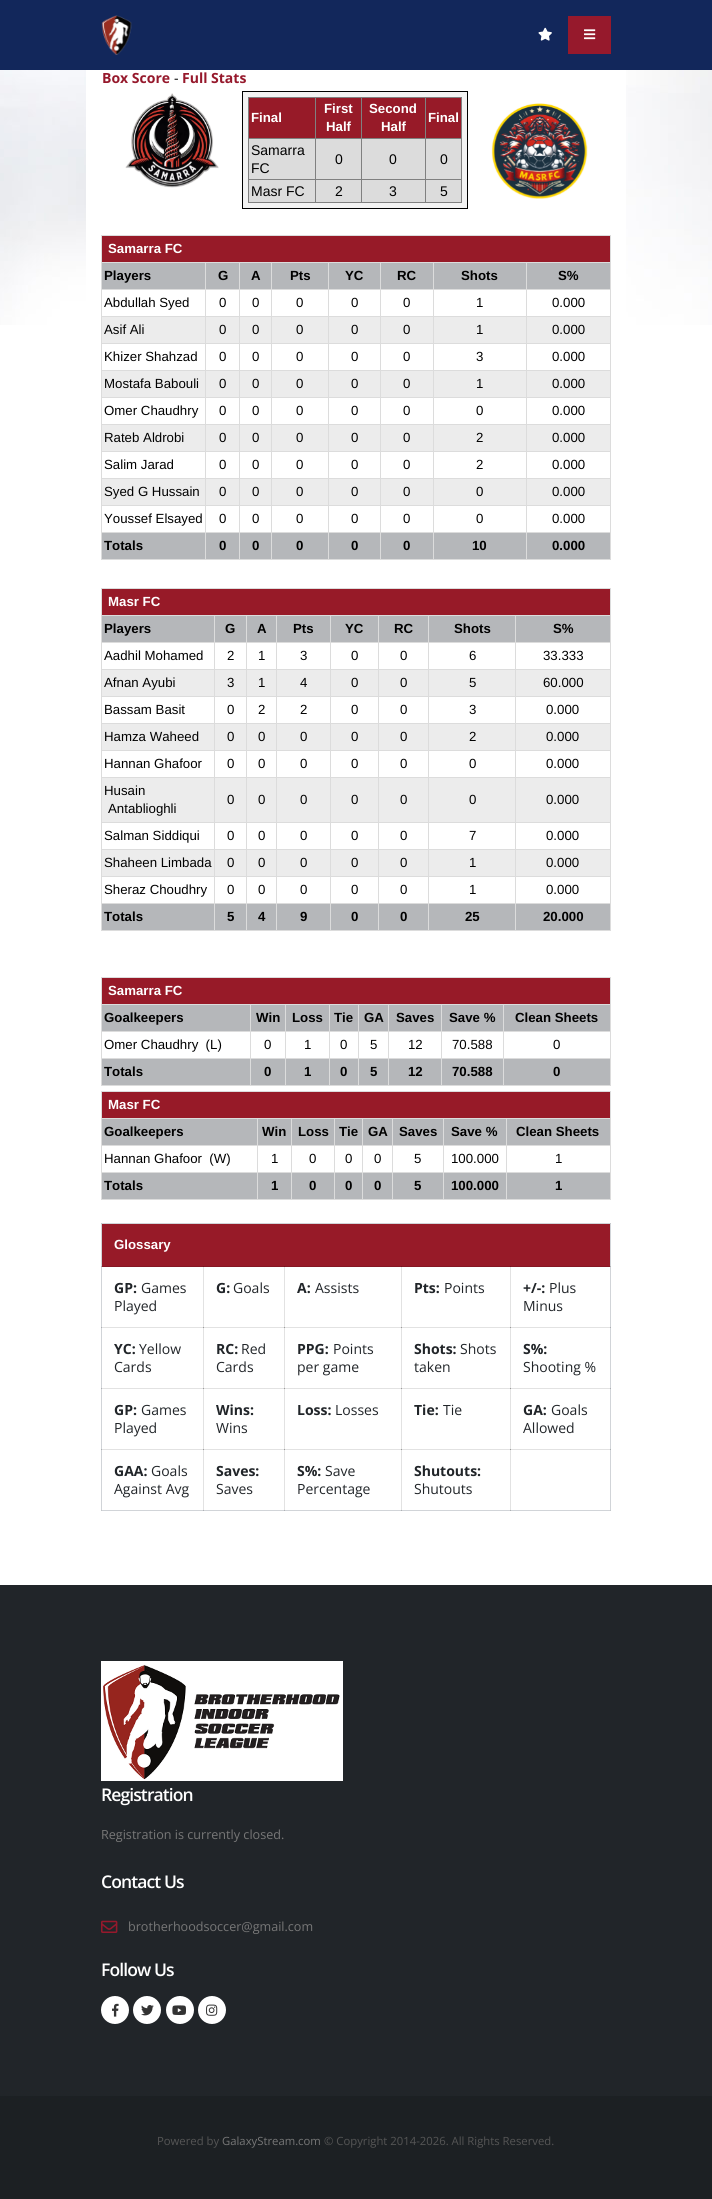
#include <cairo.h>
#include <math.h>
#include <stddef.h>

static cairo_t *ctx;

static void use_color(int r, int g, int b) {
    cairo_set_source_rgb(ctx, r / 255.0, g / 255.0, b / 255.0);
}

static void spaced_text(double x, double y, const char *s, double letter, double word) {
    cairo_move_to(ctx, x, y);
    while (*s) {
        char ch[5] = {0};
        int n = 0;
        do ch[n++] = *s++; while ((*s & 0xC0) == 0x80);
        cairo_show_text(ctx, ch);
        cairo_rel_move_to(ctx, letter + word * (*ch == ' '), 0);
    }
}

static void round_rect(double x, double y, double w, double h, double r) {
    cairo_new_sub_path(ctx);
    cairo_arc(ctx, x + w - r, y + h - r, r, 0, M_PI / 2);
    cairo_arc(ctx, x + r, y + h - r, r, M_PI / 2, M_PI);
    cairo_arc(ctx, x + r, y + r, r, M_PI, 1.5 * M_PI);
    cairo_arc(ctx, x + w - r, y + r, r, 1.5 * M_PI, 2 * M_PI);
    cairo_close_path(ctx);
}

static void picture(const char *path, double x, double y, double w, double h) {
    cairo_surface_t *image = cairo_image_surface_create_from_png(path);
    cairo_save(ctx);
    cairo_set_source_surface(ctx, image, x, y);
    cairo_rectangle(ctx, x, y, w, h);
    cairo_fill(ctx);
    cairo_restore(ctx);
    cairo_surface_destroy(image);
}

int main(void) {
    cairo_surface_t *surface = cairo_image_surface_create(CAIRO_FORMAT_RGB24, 712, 2199);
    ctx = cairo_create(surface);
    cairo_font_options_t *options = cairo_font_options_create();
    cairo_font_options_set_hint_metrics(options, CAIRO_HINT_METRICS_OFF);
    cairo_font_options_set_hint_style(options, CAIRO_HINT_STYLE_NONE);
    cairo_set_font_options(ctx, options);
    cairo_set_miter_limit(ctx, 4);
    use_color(255, 255, 255);
    cairo_paint(ctx);
    picture("img1.png", 0, 70, 712, 255);
    use_color(255, 255, 255);
    round_rect(86, 7, 540, 1528, 1);
    cairo_fill(ctx);
    use_color(18, 39, 91);
    cairo_rectangle(ctx, 0, 0, 712, 70);
    cairo_fill(ctx);
    picture("img2.png", 101, 15, 31, 40);
    picture("img3.png", 538, 27, 14, 14);
    use_color(150, 25, 44);
    cairo_rectangle(ctx, 568, 16, 43, 38);
    cairo_fill(ctx);
    picture("img4.png", 584, 29, 12, 11);
    use_color(226, 226, 226);
    cairo_rectangle(ctx, 203, 1266, 1, 62);
    cairo_fill(ctx);
    cairo_rectangle(ctx, 284, 1266, 1, 62);
    cairo_fill(ctx);
    cairo_rectangle(ctx, 401, 1266, 1, 62);
    cairo_fill(ctx);
    cairo_rectangle(ctx, 510, 1266, 1, 62);
    cairo_fill(ctx);
    cairo_rectangle(ctx, 101, 1327, 103, 1);
    cairo_fill(ctx);
    cairo_rectangle(ctx, 203, 1327, 1, 62);
    cairo_fill(ctx);
    cairo_rectangle(ctx, 203, 1327, 82, 1);
    cairo_fill(ctx);
    use_color(155, 155, 155);
    cairo_rectangle(ctx, 203, 1327, 1, 1);
    cairo_fill(ctx);
    use_color(226, 226, 226);
    cairo_rectangle(ctx, 284, 1327, 1, 62);
    cairo_fill(ctx);
    cairo_rectangle(ctx, 284, 1327, 118, 1);
    cairo_fill(ctx);
    use_color(155, 155, 155);
    cairo_rectangle(ctx, 284, 1327, 1, 1);
    cairo_fill(ctx);
    use_color(226, 226, 226);
    cairo_rectangle(ctx, 401, 1327, 1, 62);
    cairo_fill(ctx);
    cairo_rectangle(ctx, 401, 1327, 110, 1);
    cairo_fill(ctx);
    use_color(155, 155, 155);
    cairo_rectangle(ctx, 401, 1327, 1, 1);
    cairo_fill(ctx);
    use_color(226, 226, 226);
    cairo_rectangle(ctx, 510, 1327, 1, 62);
    cairo_fill(ctx);
    cairo_rectangle(ctx, 510, 1327, 101, 1);
    cairo_fill(ctx);
    use_color(155, 155, 155);
    cairo_rectangle(ctx, 510, 1327, 1, 1);
    cairo_fill(ctx);
    use_color(226, 226, 226);
    cairo_rectangle(ctx, 101, 1388, 103, 1);
    cairo_fill(ctx);
    cairo_rectangle(ctx, 203, 1388, 1, 62);
    cairo_fill(ctx);
    cairo_rectangle(ctx, 203, 1388, 82, 1);
    cairo_fill(ctx);
    use_color(155, 155, 155);
    cairo_rectangle(ctx, 203, 1388, 1, 1);
    cairo_fill(ctx);
    use_color(226, 226, 226);
    cairo_rectangle(ctx, 284, 1388, 1, 62);
    cairo_fill(ctx);
    cairo_rectangle(ctx, 284, 1388, 118, 1);
    cairo_fill(ctx);
    use_color(155, 155, 155);
    cairo_rectangle(ctx, 284, 1388, 1, 1);
    cairo_fill(ctx);
    use_color(226, 226, 226);
    cairo_rectangle(ctx, 401, 1388, 1, 62);
    cairo_fill(ctx);
    cairo_rectangle(ctx, 401, 1388, 110, 1);
    cairo_fill(ctx);
    use_color(155, 155, 155);
    cairo_rectangle(ctx, 401, 1388, 1, 1);
    cairo_fill(ctx);
    use_color(226, 226, 226);
    cairo_rectangle(ctx, 510, 1388, 1, 62);
    cairo_fill(ctx);
    cairo_rectangle(ctx, 510, 1388, 101, 1);
    cairo_fill(ctx);
    use_color(155, 155, 155);
    cairo_rectangle(ctx, 510, 1388, 1, 1);
    cairo_fill(ctx);
    use_color(226, 226, 226);
    cairo_rectangle(ctx, 101, 1449, 103, 1);
    cairo_fill(ctx);
    cairo_rectangle(ctx, 203, 1449, 1, 62);
    cairo_fill(ctx);
    cairo_rectangle(ctx, 203, 1449, 82, 1);
    cairo_fill(ctx);
    use_color(155, 155, 155);
    cairo_rectangle(ctx, 203, 1449, 1, 1);
    cairo_fill(ctx);
    use_color(226, 226, 226);
    cairo_rectangle(ctx, 284, 1449, 1, 62);
    cairo_fill(ctx);
    cairo_rectangle(ctx, 284, 1449, 118, 1);
    cairo_fill(ctx);
    use_color(155, 155, 155);
    cairo_rectangle(ctx, 284, 1449, 1, 1);
    cairo_fill(ctx);
    use_color(226, 226, 226);
    cairo_rectangle(ctx, 401, 1449, 1, 62);
    cairo_fill(ctx);
    cairo_rectangle(ctx, 401, 1449, 110, 1);
    cairo_fill(ctx);
    use_color(155, 155, 155);
    cairo_rectangle(ctx, 401, 1449, 1, 1);
    cairo_fill(ctx);
    use_color(226, 226, 226);
    cairo_rectangle(ctx, 510, 1449, 1, 62);
    cairo_fill(ctx);
    cairo_rectangle(ctx, 510, 1449, 101, 1);
    cairo_fill(ctx);
    use_color(155, 155, 155);
    cairo_rectangle(ctx, 510, 1449, 1, 1);
    cairo_fill(ctx);
    cairo_select_font_face(ctx, "Open Sans", CAIRO_FONT_SLANT_NORMAL, CAIRO_FONT_WEIGHT_BOLD);
    cairo_set_font_size(ctx, 14);
    use_color(150, 25, 44);
    cairo_move_to(ctx, 102, 83);
    cairo_show_text(ctx, "Box Score");
    cairo_select_font_face(ctx, "Open Sans", CAIRO_FONT_SLANT_NORMAL, CAIRO_FONT_WEIGHT_NORMAL);
    use_color(0, 0, 0);
    cairo_move_to(ctx, 174, 83);
    cairo_show_text(ctx, "-");
    cairo_select_font_face(ctx, "Open Sans", CAIRO_FONT_SLANT_NORMAL, CAIRO_FONT_WEIGHT_BOLD);
    use_color(150, 25, 44);
    cairo_move_to(ctx, 182, 83);
    cairo_show_text(ctx, "Full Stats");
    picture("img5.png", 125, 93, 94, 95);
    use_color(243, 243, 243);
    cairo_rectangle(ctx, 243, 92, 224, 116);
    cairo_fill(ctx);
    use_color(0, 0, 0);
    cairo_rectangle(ctx, 242, 91, 226, 1);
    cairo_fill(ctx);
    cairo_rectangle(ctx, 467, 91, 1, 118);
    cairo_fill(ctx);
    cairo_rectangle(ctx, 242, 208, 226, 1);
    cairo_fill(ctx);
    cairo_rectangle(ctx, 242, 91, 1, 118);
    cairo_fill(ctx);
    use_color(220, 220, 220);
    cairo_rectangle(ctx, 249, 139, 212, 63);
    cairo_fill(ctx);
    use_color(128, 128, 128);
    cairo_rectangle(ctx, 248, 97, 214, 1);
    cairo_fill(ctx);
    cairo_rectangle(ctx, 461, 97, 1, 106);
    cairo_fill(ctx);
    cairo_rectangle(ctx, 248, 202, 214, 1);
    cairo_fill(ctx);
    cairo_rectangle(ctx, 248, 97, 1, 106);
    cairo_fill(ctx);
    use_color(151, 26, 40);
    cairo_rectangle(ctx, 249, 98, 212, 40);
    cairo_fill(ctx);
    cairo_select_font_face(ctx, "Liberation Sans", CAIRO_FONT_SLANT_NORMAL, CAIRO_FONT_WEIGHT_BOLD);
    cairo_set_font_size(ctx, 13.25);
    use_color(255, 255, 255);
    cairo_move_to(ctx, 251, 122);
    cairo_show_text(ctx, "Final");
    use_color(128, 128, 128);
    cairo_rectangle(ctx, 425, 138, 37, 1);
    cairo_fill(ctx);
    cairo_rectangle(ctx, 425, 179, 37, 1);
    cairo_fill(ctx);
    cairo_rectangle(ctx, 425, 179, 1, 24);
    cairo_fill(ctx);
    cairo_rectangle(ctx, 361, 179, 65, 1);
    cairo_fill(ctx);
    cairo_rectangle(ctx, 425, 138, 1, 42);
    cairo_fill(ctx);
    cairo_rectangle(ctx, 361, 138, 65, 1);
    cairo_fill(ctx);
    cairo_rectangle(ctx, 361, 179, 1, 24);
    cairo_fill(ctx);
    cairo_rectangle(ctx, 315, 179, 47, 1);
    cairo_fill(ctx);
    cairo_rectangle(ctx, 361, 138, 1, 42);
    cairo_fill(ctx);
    cairo_rectangle(ctx, 315, 138, 47, 1);
    cairo_fill(ctx);
    cairo_rectangle(ctx, 315, 179, 1, 24);
    cairo_fill(ctx);
    cairo_rectangle(ctx, 248, 179, 68, 1);
    cairo_fill(ctx);
    cairo_rectangle(ctx, 315, 138, 1, 42);
    cairo_fill(ctx);
    cairo_rectangle(ctx, 248, 138, 68, 1);
    cairo_fill(ctx);
    cairo_rectangle(ctx, 315, 97, 1, 42);
    cairo_fill(ctx);
    use_color(255, 255, 255);
    cairo_move_to(ctx, 324, 113);
    cairo_show_text(ctx, "First");
    cairo_move_to(ctx, 326, 131);
    cairo_show_text(ctx, "Half");
    use_color(128, 128, 128);
    cairo_rectangle(ctx, 361, 97, 1, 42);
    cairo_fill(ctx);
    use_color(255, 255, 255);
    cairo_move_to(ctx, 369, 113);
    cairo_show_text(ctx, "Second");
    cairo_move_to(ctx, 381, 131);
    cairo_show_text(ctx, "Half");
    use_color(128, 128, 128);
    cairo_rectangle(ctx, 425, 97, 1, 42);
    cairo_fill(ctx);
    use_color(255, 255, 255);
    cairo_move_to(ctx, 428, 122);
    cairo_show_text(ctx, "Final");
    cairo_select_font_face(ctx, "Liberation Sans", CAIRO_FONT_SLANT_NORMAL, CAIRO_FONT_WEIGHT_NORMAL);
    cairo_set_font_size(ctx, 14);
    use_color(0, 0, 0);
    cairo_move_to(ctx, 251, 155);
    cairo_show_text(ctx, "Samarra");
    cairo_move_to(ctx, 251, 173);
    cairo_show_text(ctx, "FC");
    cairo_move_to(ctx, 335, 164);
    cairo_show_text(ctx, "0");
    cairo_move_to(ctx, 389, 164);
    cairo_show_text(ctx, "0");
    cairo_move_to(ctx, 440, 164);
    cairo_show_text(ctx, "0");
    cairo_move_to(ctx, 251, 196);
    cairo_show_text(ctx, "Masr FC");
    cairo_move_to(ctx, 335, 196);
    cairo_show_text(ctx, "2");
    cairo_move_to(ctx, 389, 196);
    cairo_show_text(ctx, "3");
    cairo_move_to(ctx, 440, 196);
    cairo_show_text(ctx, "5");
    picture("img6.png", 491, 103, 97, 96);
    use_color(220, 220, 220);
    cairo_rectangle(ctx, 101, 235, 509, 324);
    cairo_fill(ctx);
    cairo_rectangle(ctx, 610, 235, 1, 325);
    cairo_fill(ctx);
    cairo_rectangle(ctx, 101, 559, 510, 1);
    cairo_fill(ctx);
    use_color(151, 26, 40);
    cairo_rectangle(ctx, 102, 236, 508, 26);
    cairo_fill(ctx);
    cairo_select_font_face(ctx, "Liberation Sans", CAIRO_FONT_SLANT_NORMAL, CAIRO_FONT_WEIGHT_BOLD);
    cairo_set_font_size(ctx, 13.25);
    use_color(255, 255, 255);
    cairo_move_to(ctx, 108, 253);
    cairo_show_text(ctx, "Samarra FC");
    use_color(181, 183, 186);
    cairo_rectangle(ctx, 102, 263, 508, 26);
    cairo_fill(ctx);
    use_color(0, 0, 0);
    cairo_move_to(ctx, 104, 280);
    cairo_show_text(ctx, "Players");
    cairo_move_to(ctx, 218, 280);
    cairo_show_text(ctx, "G");
    cairo_move_to(ctx, 251, 280);
    cairo_show_text(ctx, "A");
    cairo_move_to(ctx, 290, 280);
    cairo_show_text(ctx, "Pts");
    cairo_move_to(ctx, 345, 280);
    cairo_show_text(ctx, "YC");
    cairo_move_to(ctx, 397, 280);
    cairo_show_text(ctx, "RC");
    cairo_move_to(ctx, 461, 280);
    cairo_show_text(ctx, "Shots");
    cairo_move_to(ctx, 558, 280);
    cairo_show_text(ctx, "S%");
    use_color(255, 255, 255);
    cairo_rectangle(ctx, 102, 290, 508, 26);
    cairo_fill(ctx);
    cairo_select_font_face(ctx, "Liberation Sans", CAIRO_FONT_SLANT_NORMAL, CAIRO_FONT_WEIGHT_NORMAL);
    use_color(0, 0, 0);
    cairo_move_to(ctx, 104, 307);
    cairo_show_text(ctx, "Abdullah Syed");
    cairo_move_to(ctx, 219, 307);
    cairo_show_text(ctx, "0");
    cairo_move_to(ctx, 252, 307);
    cairo_show_text(ctx, "0");
    cairo_move_to(ctx, 296, 307);
    cairo_show_text(ctx, "0");
    cairo_move_to(ctx, 351, 307);
    cairo_show_text(ctx, "0");
    cairo_move_to(ctx, 403, 307);
    cairo_show_text(ctx, "0");
    cairo_move_to(ctx, 476, 307);
    cairo_show_text(ctx, "1");
    cairo_move_to(ctx, 552, 307);
    cairo_show_text(ctx, "0.000");
    use_color(236, 236, 236);
    cairo_rectangle(ctx, 102, 317, 508, 26);
    cairo_fill(ctx);
    use_color(0, 0, 0);
    cairo_move_to(ctx, 104, 334);
    cairo_show_text(ctx, "Asif Ali");
    cairo_move_to(ctx, 219, 334);
    cairo_show_text(ctx, "0");
    cairo_move_to(ctx, 252, 334);
    cairo_show_text(ctx, "0");
    cairo_move_to(ctx, 296, 334);
    cairo_show_text(ctx, "0");
    cairo_move_to(ctx, 351, 334);
    cairo_show_text(ctx, "0");
    cairo_move_to(ctx, 403, 334);
    cairo_show_text(ctx, "0");
    cairo_move_to(ctx, 476, 334);
    cairo_show_text(ctx, "1");
    cairo_move_to(ctx, 552, 334);
    cairo_show_text(ctx, "0.000");
    use_color(255, 255, 255);
    cairo_rectangle(ctx, 102, 344, 508, 26);
    cairo_fill(ctx);
    use_color(0, 0, 0);
    cairo_move_to(ctx, 104, 361);
    cairo_show_text(ctx, "Khizer Shahzad");
    cairo_move_to(ctx, 219, 361);
    cairo_show_text(ctx, "0");
    cairo_move_to(ctx, 252, 361);
    cairo_show_text(ctx, "0");
    cairo_move_to(ctx, 296, 361);
    cairo_show_text(ctx, "0");
    cairo_move_to(ctx, 351, 361);
    cairo_show_text(ctx, "0");
    cairo_move_to(ctx, 403, 361);
    cairo_show_text(ctx, "0");
    cairo_move_to(ctx, 476, 361);
    cairo_show_text(ctx, "3");
    cairo_move_to(ctx, 552, 361);
    cairo_show_text(ctx, "0.000");
    use_color(236, 236, 236);
    cairo_rectangle(ctx, 102, 371, 508, 26);
    cairo_fill(ctx);
    use_color(0, 0, 0);
    cairo_move_to(ctx, 104, 388);
    cairo_show_text(ctx, "Mostafa Babouli");
    cairo_move_to(ctx, 219, 388);
    cairo_show_text(ctx, "0");
    cairo_move_to(ctx, 252, 388);
    cairo_show_text(ctx, "0");
    cairo_move_to(ctx, 296, 388);
    cairo_show_text(ctx, "0");
    cairo_move_to(ctx, 351, 388);
    cairo_show_text(ctx, "0");
    cairo_move_to(ctx, 403, 388);
    cairo_show_text(ctx, "0");
    cairo_move_to(ctx, 476, 388);
    cairo_show_text(ctx, "1");
    cairo_move_to(ctx, 552, 388);
    cairo_show_text(ctx, "0.000");
    use_color(255, 255, 255);
    cairo_rectangle(ctx, 102, 398, 508, 26);
    cairo_fill(ctx);
    use_color(0, 0, 0);
    cairo_move_to(ctx, 104, 415);
    cairo_show_text(ctx, "Omer Chaudhry");
    cairo_move_to(ctx, 219, 415);
    cairo_show_text(ctx, "0");
    cairo_move_to(ctx, 252, 415);
    cairo_show_text(ctx, "0");
    cairo_move_to(ctx, 296, 415);
    cairo_show_text(ctx, "0");
    cairo_move_to(ctx, 351, 415);
    cairo_show_text(ctx, "0");
    cairo_move_to(ctx, 403, 415);
    cairo_show_text(ctx, "0");
    cairo_move_to(ctx, 476, 415);
    cairo_show_text(ctx, "0");
    cairo_move_to(ctx, 552, 415);
    cairo_show_text(ctx, "0.000");
    use_color(236, 236, 236);
    cairo_rectangle(ctx, 102, 425, 508, 26);
    cairo_fill(ctx);
    use_color(0, 0, 0);
    cairo_move_to(ctx, 104, 442);
    cairo_show_text(ctx, "Rateb Aldrobi");
    cairo_move_to(ctx, 219, 442);
    cairo_show_text(ctx, "0");
    cairo_move_to(ctx, 252, 442);
    cairo_show_text(ctx, "0");
    cairo_move_to(ctx, 296, 442);
    cairo_show_text(ctx, "0");
    cairo_move_to(ctx, 351, 442);
    cairo_show_text(ctx, "0");
    cairo_move_to(ctx, 403, 442);
    cairo_show_text(ctx, "0");
    cairo_move_to(ctx, 476, 442);
    cairo_show_text(ctx, "2");
    cairo_move_to(ctx, 552, 442);
    cairo_show_text(ctx, "0.000");
    use_color(255, 255, 255);
    cairo_rectangle(ctx, 102, 452, 508, 26);
    cairo_fill(ctx);
    use_color(0, 0, 0);
    cairo_move_to(ctx, 104, 469);
    cairo_show_text(ctx, "Salim Jarad");
    cairo_move_to(ctx, 219, 469);
    cairo_show_text(ctx, "0");
    cairo_move_to(ctx, 252, 469);
    cairo_show_text(ctx, "0");
    cairo_move_to(ctx, 296, 469);
    cairo_show_text(ctx, "0");
    cairo_move_to(ctx, 351, 469);
    cairo_show_text(ctx, "0");
    cairo_move_to(ctx, 403, 469);
    cairo_show_text(ctx, "0");
    cairo_move_to(ctx, 476, 469);
    cairo_show_text(ctx, "2");
    cairo_move_to(ctx, 552, 469);
    cairo_show_text(ctx, "0.000");
    use_color(236, 236, 236);
    cairo_rectangle(ctx, 102, 479, 508, 26);
    cairo_fill(ctx);
    use_color(0, 0, 0);
    cairo_move_to(ctx, 104, 496);
    cairo_show_text(ctx, "Syed G Hussain");
    cairo_move_to(ctx, 219, 496);
    cairo_show_text(ctx, "0");
    cairo_move_to(ctx, 252, 496);
    cairo_show_text(ctx, "0");
    cairo_move_to(ctx, 296, 496);
    cairo_show_text(ctx, "0");
    cairo_move_to(ctx, 351, 496);
    cairo_show_text(ctx, "0");
    cairo_move_to(ctx, 403, 496);
    cairo_show_text(ctx, "0");
    cairo_move_to(ctx, 476, 496);
    cairo_show_text(ctx, "0");
    cairo_move_to(ctx, 552, 496);
    cairo_show_text(ctx, "0.000");
    use_color(255, 255, 255);
    cairo_rectangle(ctx, 102, 506, 508, 26);
    cairo_fill(ctx);
    use_color(0, 0, 0);
    cairo_move_to(ctx, 104, 523);
    cairo_show_text(ctx, "Youssef Elsayed");
    cairo_move_to(ctx, 219, 523);
    cairo_show_text(ctx, "0");
    cairo_move_to(ctx, 252, 523);
    cairo_show_text(ctx, "0");
    cairo_move_to(ctx, 296, 523);
    cairo_show_text(ctx, "0");
    cairo_move_to(ctx, 351, 523);
    cairo_show_text(ctx, "0");
    cairo_move_to(ctx, 403, 523);
    cairo_show_text(ctx, "0");
    cairo_move_to(ctx, 476, 523);
    cairo_show_text(ctx, "0");
    cairo_move_to(ctx, 552, 523);
    cairo_show_text(ctx, "0.000");
    use_color(181, 183, 186);
    cairo_rectangle(ctx, 102, 533, 508, 26);
    cairo_fill(ctx);
    cairo_select_font_face(ctx, "Liberation Sans", CAIRO_FONT_SLANT_NORMAL, CAIRO_FONT_WEIGHT_BOLD);
    use_color(0, 0, 0);
    cairo_move_to(ctx, 104, 550);
    cairo_show_text(ctx, "Totals");
    use_color(220, 220, 220);
    cairo_rectangle(ctx, 205, 262, 1, 298);
    cairo_fill(ctx);
    use_color(0, 0, 0);
    cairo_move_to(ctx, 219, 550);
    cairo_show_text(ctx, "0");
    use_color(220, 220, 220);
    cairo_rectangle(ctx, 239, 262, 1, 298);
    cairo_fill(ctx);
    use_color(0, 0, 0);
    cairo_move_to(ctx, 252, 550);
    cairo_show_text(ctx, "0");
    use_color(220, 220, 220);
    cairo_rectangle(ctx, 271, 262, 1, 298);
    cairo_fill(ctx);
    use_color(0, 0, 0);
    cairo_move_to(ctx, 296, 550);
    cairo_show_text(ctx, "0");
    use_color(220, 220, 220);
    cairo_rectangle(ctx, 328, 262, 1, 298);
    cairo_fill(ctx);
    use_color(0, 0, 0);
    cairo_move_to(ctx, 351, 550);
    cairo_show_text(ctx, "0");
    use_color(220, 220, 220);
    cairo_rectangle(ctx, 380, 262, 1, 298);
    cairo_fill(ctx);
    use_color(0, 0, 0);
    cairo_move_to(ctx, 403, 550);
    cairo_show_text(ctx, "0");
    use_color(220, 220, 220);
    cairo_rectangle(ctx, 433, 262, 1, 298);
    cairo_fill(ctx);
    use_color(0, 0, 0);
    cairo_move_to(ctx, 472, 550);
    cairo_show_text(ctx, "10");
    use_color(220, 220, 220);
    cairo_rectangle(ctx, 526, 262, 1, 298);
    cairo_fill(ctx);
    use_color(0, 0, 0);
    cairo_move_to(ctx, 552, 550);
    cairo_show_text(ctx, "0.000");
    use_color(220, 220, 220);
    cairo_rectangle(ctx, 101, 588, 509, 342);
    cairo_fill(ctx);
    cairo_rectangle(ctx, 610, 588, 1, 343);
    cairo_fill(ctx);
    cairo_rectangle(ctx, 101, 930, 510, 1);
    cairo_fill(ctx);
    use_color(151, 26, 40);
    cairo_rectangle(ctx, 102, 589, 508, 26);
    cairo_fill(ctx);
    use_color(255, 255, 255);
    cairo_move_to(ctx, 108, 606);
    cairo_show_text(ctx, "Masr FC");
    use_color(181, 183, 186);
    cairo_rectangle(ctx, 102, 616, 508, 26);
    cairo_fill(ctx);
    use_color(0, 0, 0);
    cairo_move_to(ctx, 104, 633);
    cairo_show_text(ctx, "Players");
    cairo_move_to(ctx, 225, 633);
    cairo_show_text(ctx, "G");
    cairo_move_to(ctx, 257, 633);
    cairo_show_text(ctx, "A");
    cairo_move_to(ctx, 293, 633);
    cairo_show_text(ctx, "Pts");
    cairo_move_to(ctx, 345, 633);
    cairo_show_text(ctx, "YC");
    cairo_move_to(ctx, 394, 633);
    cairo_show_text(ctx, "RC");
    cairo_move_to(ctx, 454, 633);
    cairo_show_text(ctx, "Shots");
    cairo_move_to(ctx, 553, 633);
    cairo_show_text(ctx, "S%");
    use_color(255, 255, 255);
    cairo_rectangle(ctx, 102, 643, 508, 26);
    cairo_fill(ctx);
    cairo_select_font_face(ctx, "Liberation Sans", CAIRO_FONT_SLANT_NORMAL, CAIRO_FONT_WEIGHT_NORMAL);
    use_color(0, 0, 0);
    cairo_move_to(ctx, 104, 660);
    cairo_show_text(ctx, "Aadhil Mohamed");
    cairo_move_to(ctx, 227, 660);
    cairo_show_text(ctx, "2");
    cairo_move_to(ctx, 258, 660);
    cairo_show_text(ctx, "1");
    cairo_move_to(ctx, 300, 660);
    cairo_show_text(ctx, "3");
    cairo_move_to(ctx, 351, 660);
    cairo_show_text(ctx, "0");
    cairo_move_to(ctx, 400, 660);
    cairo_show_text(ctx, "0");
    cairo_move_to(ctx, 469, 660);
    cairo_show_text(ctx, "6");
    cairo_move_to(ctx, 543, 660);
    cairo_show_text(ctx, "33.333");
    use_color(236, 236, 236);
    cairo_rectangle(ctx, 102, 670, 508, 26);
    cairo_fill(ctx);
    use_color(0, 0, 0);
    cairo_move_to(ctx, 104, 687);
    cairo_show_text(ctx, "Afnan Ayubi");
    cairo_move_to(ctx, 227, 687);
    cairo_show_text(ctx, "3");
    cairo_move_to(ctx, 258, 687);
    cairo_show_text(ctx, "1");
    cairo_move_to(ctx, 300, 687);
    cairo_show_text(ctx, "4");
    cairo_move_to(ctx, 351, 687);
    cairo_show_text(ctx, "0");
    cairo_move_to(ctx, 400, 687);
    cairo_show_text(ctx, "0");
    cairo_move_to(ctx, 469, 687);
    cairo_show_text(ctx, "5");
    cairo_move_to(ctx, 543, 687);
    cairo_show_text(ctx, "60.000");
    use_color(255, 255, 255);
    cairo_rectangle(ctx, 102, 697, 508, 26);
    cairo_fill(ctx);
    use_color(0, 0, 0);
    cairo_move_to(ctx, 104, 714);
    cairo_show_text(ctx, "Bassam Basit");
    cairo_move_to(ctx, 227, 714);
    cairo_show_text(ctx, "0");
    cairo_move_to(ctx, 258, 714);
    cairo_show_text(ctx, "2");
    cairo_move_to(ctx, 300, 714);
    cairo_show_text(ctx, "2");
    cairo_move_to(ctx, 351, 714);
    cairo_show_text(ctx, "0");
    cairo_move_to(ctx, 400, 714);
    cairo_show_text(ctx, "0");
    cairo_move_to(ctx, 469, 714);
    cairo_show_text(ctx, "3");
    cairo_move_to(ctx, 546, 714);
    cairo_show_text(ctx, "0.000");
    use_color(236, 236, 236);
    cairo_rectangle(ctx, 102, 724, 508, 26);
    cairo_fill(ctx);
    use_color(0, 0, 0);
    cairo_move_to(ctx, 104, 741);
    cairo_show_text(ctx, "Hamza Waheed");
    cairo_move_to(ctx, 227, 741);
    cairo_show_text(ctx, "0");
    cairo_move_to(ctx, 258, 741);
    cairo_show_text(ctx, "0");
    cairo_move_to(ctx, 300, 741);
    cairo_show_text(ctx, "0");
    cairo_move_to(ctx, 351, 741);
    cairo_show_text(ctx, "0");
    cairo_move_to(ctx, 400, 741);
    cairo_show_text(ctx, "0");
    cairo_move_to(ctx, 469, 741);
    cairo_show_text(ctx, "2");
    cairo_move_to(ctx, 546, 741);
    cairo_show_text(ctx, "0.000");
    use_color(255, 255, 255);
    cairo_rectangle(ctx, 102, 751, 508, 26);
    cairo_fill(ctx);
    use_color(0, 0, 0);
    cairo_move_to(ctx, 104, 768);
    cairo_show_text(ctx, "Hannan Ghafoor");
    cairo_move_to(ctx, 227, 768);
    cairo_show_text(ctx, "0");
    cairo_move_to(ctx, 258, 768);
    cairo_show_text(ctx, "0");
    cairo_move_to(ctx, 300, 768);
    cairo_show_text(ctx, "0");
    cairo_move_to(ctx, 351, 768);
    cairo_show_text(ctx, "0");
    cairo_move_to(ctx, 400, 768);
    cairo_show_text(ctx, "0");
    cairo_move_to(ctx, 469, 768);
    cairo_show_text(ctx, "0");
    cairo_move_to(ctx, 546, 768);
    cairo_show_text(ctx, "0.000");
    use_color(236, 236, 236);
    cairo_rectangle(ctx, 102, 778, 508, 44);
    cairo_fill(ctx);
    use_color(0, 0, 0);
    cairo_move_to(ctx, 104, 795);
    cairo_show_text(ctx, "Husain");
    cairo_move_to(ctx, 108, 813);
    cairo_show_text(ctx, "Antablioghli");
    cairo_move_to(ctx, 227, 804);
    cairo_show_text(ctx, "0");
    cairo_move_to(ctx, 258, 804);
    cairo_show_text(ctx, "0");
    cairo_move_to(ctx, 300, 804);
    cairo_show_text(ctx, "0");
    cairo_move_to(ctx, 351, 804);
    cairo_show_text(ctx, "0");
    cairo_move_to(ctx, 400, 804);
    cairo_show_text(ctx, "0");
    cairo_move_to(ctx, 469, 804);
    cairo_show_text(ctx, "0");
    cairo_move_to(ctx, 546, 804);
    cairo_show_text(ctx, "0.000");
    use_color(255, 255, 255);
    cairo_rectangle(ctx, 102, 823, 508, 26);
    cairo_fill(ctx);
    use_color(0, 0, 0);
    cairo_move_to(ctx, 104, 840);
    cairo_show_text(ctx, "Salman Siddiqui");
    cairo_move_to(ctx, 227, 840);
    cairo_show_text(ctx, "0");
    cairo_move_to(ctx, 258, 840);
    cairo_show_text(ctx, "0");
    cairo_move_to(ctx, 300, 840);
    cairo_show_text(ctx, "0");
    cairo_move_to(ctx, 351, 840);
    cairo_show_text(ctx, "0");
    cairo_move_to(ctx, 400, 840);
    cairo_show_text(ctx, "0");
    cairo_move_to(ctx, 469, 840);
    cairo_show_text(ctx, "7");
    cairo_move_to(ctx, 546, 840);
    cairo_show_text(ctx, "0.000");
    use_color(236, 236, 236);
    cairo_rectangle(ctx, 102, 850, 508, 26);
    cairo_fill(ctx);
    use_color(0, 0, 0);
    cairo_move_to(ctx, 104, 867);
    cairo_show_text(ctx, "Shaheen Limbada");
    cairo_move_to(ctx, 227, 867);
    cairo_show_text(ctx, "0");
    cairo_move_to(ctx, 258, 867);
    cairo_show_text(ctx, "0");
    cairo_move_to(ctx, 300, 867);
    cairo_show_text(ctx, "0");
    cairo_move_to(ctx, 351, 867);
    cairo_show_text(ctx, "0");
    cairo_move_to(ctx, 400, 867);
    cairo_show_text(ctx, "0");
    cairo_move_to(ctx, 469, 867);
    cairo_show_text(ctx, "1");
    cairo_move_to(ctx, 546, 867);
    cairo_show_text(ctx, "0.000");
    use_color(255, 255, 255);
    cairo_rectangle(ctx, 102, 877, 508, 26);
    cairo_fill(ctx);
    use_color(0, 0, 0);
    cairo_move_to(ctx, 104, 894);
    cairo_show_text(ctx, "Sheraz Choudhry");
    cairo_move_to(ctx, 227, 894);
    cairo_show_text(ctx, "0");
    cairo_move_to(ctx, 258, 894);
    cairo_show_text(ctx, "0");
    cairo_move_to(ctx, 300, 894);
    cairo_show_text(ctx, "0");
    cairo_move_to(ctx, 351, 894);
    cairo_show_text(ctx, "0");
    cairo_move_to(ctx, 400, 894);
    cairo_show_text(ctx, "0");
    cairo_move_to(ctx, 469, 894);
    cairo_show_text(ctx, "1");
    cairo_move_to(ctx, 546, 894);
    cairo_show_text(ctx, "0.000");
    use_color(181, 183, 186);
    cairo_rectangle(ctx, 102, 904, 508, 26);
    cairo_fill(ctx);
    cairo_select_font_face(ctx, "Liberation Sans", CAIRO_FONT_SLANT_NORMAL, CAIRO_FONT_WEIGHT_BOLD);
    use_color(0, 0, 0);
    cairo_move_to(ctx, 104, 921);
    cairo_show_text(ctx, "Totals");
    use_color(220, 220, 220);
    cairo_rectangle(ctx, 214, 615, 1, 316);
    cairo_fill(ctx);
    use_color(0, 0, 0);
    cairo_move_to(ctx, 227, 921);
    cairo_show_text(ctx, "5");
    use_color(220, 220, 220);
    cairo_rectangle(ctx, 246, 615, 1, 316);
    cairo_fill(ctx);
    use_color(0, 0, 0);
    cairo_move_to(ctx, 258, 921);
    cairo_show_text(ctx, "4");
    use_color(220, 220, 220);
    cairo_rectangle(ctx, 276, 615, 1, 316);
    cairo_fill(ctx);
    use_color(0, 0, 0);
    cairo_move_to(ctx, 300, 921);
    cairo_show_text(ctx, "9");
    use_color(220, 220, 220);
    cairo_rectangle(ctx, 330, 615, 1, 316);
    cairo_fill(ctx);
    use_color(0, 0, 0);
    cairo_move_to(ctx, 351, 921);
    cairo_show_text(ctx, "0");
    use_color(220, 220, 220);
    cairo_rectangle(ctx, 378, 615, 1, 316);
    cairo_fill(ctx);
    use_color(0, 0, 0);
    cairo_move_to(ctx, 400, 921);
    cairo_show_text(ctx, "0");
    use_color(220, 220, 220);
    cairo_rectangle(ctx, 428, 615, 1, 316);
    cairo_fill(ctx);
    use_color(0, 0, 0);
    cairo_move_to(ctx, 465, 921);
    cairo_show_text(ctx, "25");
    use_color(220, 220, 220);
    cairo_rectangle(ctx, 515, 615, 1, 316);
    cairo_fill(ctx);
    use_color(0, 0, 0);
    cairo_move_to(ctx, 543, 921);
    cairo_show_text(ctx, "20.000");
    use_color(220, 220, 220);
    cairo_rectangle(ctx, 101, 977, 509, 108);
    cairo_fill(ctx);
    cairo_rectangle(ctx, 610, 977, 1, 109);
    cairo_fill(ctx);
    cairo_rectangle(ctx, 101, 1085, 510, 1);
    cairo_fill(ctx);
    use_color(151, 26, 40);
    cairo_rectangle(ctx, 102, 978, 508, 26);
    cairo_fill(ctx);
    use_color(255, 255, 255);
    cairo_move_to(ctx, 108, 995);
    cairo_show_text(ctx, "Samarra FC");
    use_color(181, 183, 186);
    cairo_rectangle(ctx, 102, 1005, 508, 26);
    cairo_fill(ctx);
    use_color(0, 0, 0);
    cairo_move_to(ctx, 104, 1022);
    cairo_show_text(ctx, "Goalkeepers");
    cairo_move_to(ctx, 256, 1022);
    cairo_show_text(ctx, "Win");
    cairo_move_to(ctx, 292, 1022);
    cairo_show_text(ctx, "Loss");
    cairo_move_to(ctx, 334, 1022);
    cairo_show_text(ctx, "Tie");
    cairo_move_to(ctx, 364, 1022);
    cairo_show_text(ctx, "GA");
    cairo_move_to(ctx, 396, 1022);
    cairo_show_text(ctx, "Saves");
    cairo_move_to(ctx, 449, 1022);
    cairo_show_text(ctx, "Save %");
    cairo_move_to(ctx, 515, 1022);
    cairo_show_text(ctx, "Clean Sheets");
    use_color(255, 255, 255);
    cairo_rectangle(ctx, 102, 1032, 508, 26);
    cairo_fill(ctx);
    cairo_select_font_face(ctx, "Liberation Sans", CAIRO_FONT_SLANT_NORMAL, CAIRO_FONT_WEIGHT_NORMAL);
    use_color(0, 0, 0);
    cairo_move_to(ctx, 104, 1049);
    cairo_show_text(ctx, "Omer Chaudhry  (L)");
    cairo_move_to(ctx, 264, 1049);
    cairo_show_text(ctx, "0");
    cairo_move_to(ctx, 304, 1049);
    cairo_show_text(ctx, "1");
    cairo_move_to(ctx, 340, 1049);
    cairo_show_text(ctx, "0");
    cairo_move_to(ctx, 370, 1049);
    cairo_show_text(ctx, "5");
    cairo_move_to(ctx, 408, 1049);
    cairo_show_text(ctx, "12");
    cairo_move_to(ctx, 452, 1049);
    cairo_show_text(ctx, "70.588");
    cairo_move_to(ctx, 553, 1049);
    cairo_show_text(ctx, "0");
    use_color(181, 183, 186);
    cairo_rectangle(ctx, 102, 1059, 508, 26);
    cairo_fill(ctx);
    cairo_select_font_face(ctx, "Liberation Sans", CAIRO_FONT_SLANT_NORMAL, CAIRO_FONT_WEIGHT_BOLD);
    use_color(0, 0, 0);
    cairo_move_to(ctx, 104, 1076);
    cairo_show_text(ctx, "Totals");
    use_color(220, 220, 220);
    cairo_rectangle(ctx, 250, 1004, 1, 82);
    cairo_fill(ctx);
    use_color(0, 0, 0);
    cairo_move_to(ctx, 264, 1076);
    cairo_show_text(ctx, "0");
    use_color(220, 220, 220);
    cairo_rectangle(ctx, 285, 1004, 1, 82);
    cairo_fill(ctx);
    use_color(0, 0, 0);
    cairo_move_to(ctx, 304, 1076);
    cairo_show_text(ctx, "1");
    use_color(220, 220, 220);
    cairo_rectangle(ctx, 329, 1004, 1, 82);
    cairo_fill(ctx);
    use_color(0, 0, 0);
    cairo_move_to(ctx, 340, 1076);
    cairo_show_text(ctx, "0");
    use_color(220, 220, 220);
    cairo_rectangle(ctx, 358, 1004, 1, 82);
    cairo_fill(ctx);
    use_color(0, 0, 0);
    cairo_move_to(ctx, 370, 1076);
    cairo_show_text(ctx, "5");
    use_color(220, 220, 220);
    cairo_rectangle(ctx, 388, 1004, 1, 82);
    cairo_fill(ctx);
    use_color(0, 0, 0);
    cairo_move_to(ctx, 408, 1076);
    cairo_show_text(ctx, "12");
    use_color(220, 220, 220);
    cairo_rectangle(ctx, 441, 1004, 1, 82);
    cairo_fill(ctx);
    use_color(0, 0, 0);
    cairo_move_to(ctx, 452, 1076);
    cairo_show_text(ctx, "70.588");
    use_color(220, 220, 220);
    cairo_rectangle(ctx, 503, 1004, 1, 82);
    cairo_fill(ctx);
    use_color(0, 0, 0);
    cairo_move_to(ctx, 553, 1076);
    cairo_show_text(ctx, "0");
    use_color(220, 220, 220);
    cairo_rectangle(ctx, 101, 1091, 509, 108);
    cairo_fill(ctx);
    cairo_rectangle(ctx, 610, 1091, 1, 109);
    cairo_fill(ctx);
    cairo_rectangle(ctx, 101, 1199, 510, 1);
    cairo_fill(ctx);
    use_color(151, 26, 40);
    cairo_rectangle(ctx, 102, 1092, 508, 26);
    cairo_fill(ctx);
    use_color(255, 255, 255);
    cairo_move_to(ctx, 108, 1109);
    cairo_show_text(ctx, "Masr FC");
    use_color(181, 183, 186);
    cairo_rectangle(ctx, 102, 1119, 508, 26);
    cairo_fill(ctx);
    use_color(0, 0, 0);
    cairo_move_to(ctx, 104, 1136);
    cairo_show_text(ctx, "Goalkeepers");
    cairo_move_to(ctx, 262, 1136);
    cairo_show_text(ctx, "Win");
    cairo_move_to(ctx, 298, 1136);
    cairo_show_text(ctx, "Loss");
    cairo_move_to(ctx, 339, 1136);
    cairo_show_text(ctx, "Tie");
    cairo_move_to(ctx, 368, 1136);
    cairo_show_text(ctx, "GA");
    cairo_move_to(ctx, 399, 1136);
    cairo_show_text(ctx, "Saves");
    cairo_move_to(ctx, 451, 1136);
    cairo_show_text(ctx, "Save %");
    cairo_move_to(ctx, 516, 1136);
    cairo_show_text(ctx, "Clean Sheets");
    use_color(255, 255, 255);
    cairo_rectangle(ctx, 102, 1146, 508, 26);
    cairo_fill(ctx);
    cairo_select_font_face(ctx, "Liberation Sans", CAIRO_FONT_SLANT_NORMAL, CAIRO_FONT_WEIGHT_NORMAL);
    use_color(0, 0, 0);
    cairo_move_to(ctx, 104, 1163);
    cairo_show_text(ctx, "Hannan Ghafoor  (W)");
    cairo_move_to(ctx, 271, 1163);
    cairo_show_text(ctx, "1");
    cairo_move_to(ctx, 309, 1163);
    cairo_show_text(ctx, "0");
    cairo_move_to(ctx, 345, 1163);
    cairo_show_text(ctx, "0");
    cairo_move_to(ctx, 374, 1163);
    cairo_show_text(ctx, "0");
    cairo_move_to(ctx, 414, 1163);
    cairo_show_text(ctx, "5");
    cairo_move_to(ctx, 451, 1163);
    cairo_show_text(ctx, "100.000");
    cairo_move_to(ctx, 555, 1163);
    cairo_show_text(ctx, "1");
    use_color(181, 183, 186);
    cairo_rectangle(ctx, 102, 1173, 508, 26);
    cairo_fill(ctx);
    cairo_select_font_face(ctx, "Liberation Sans", CAIRO_FONT_SLANT_NORMAL, CAIRO_FONT_WEIGHT_BOLD);
    use_color(0, 0, 0);
    cairo_move_to(ctx, 104, 1190);
    cairo_show_text(ctx, "Totals");
    use_color(220, 220, 220);
    cairo_rectangle(ctx, 257, 1118, 1, 82);
    cairo_fill(ctx);
    use_color(0, 0, 0);
    cairo_move_to(ctx, 271, 1190);
    cairo_show_text(ctx, "1");
    use_color(220, 220, 220);
    cairo_rectangle(ctx, 291, 1118, 1, 82);
    cairo_fill(ctx);
    use_color(0, 0, 0);
    cairo_move_to(ctx, 309, 1190);
    cairo_show_text(ctx, "0");
    use_color(220, 220, 220);
    cairo_rectangle(ctx, 334, 1118, 1, 82);
    cairo_fill(ctx);
    use_color(0, 0, 0);
    cairo_move_to(ctx, 345, 1190);
    cairo_show_text(ctx, "0");
    use_color(220, 220, 220);
    cairo_rectangle(ctx, 362, 1118, 1, 82);
    cairo_fill(ctx);
    use_color(0, 0, 0);
    cairo_move_to(ctx, 374, 1190);
    cairo_show_text(ctx, "0");
    use_color(220, 220, 220);
    cairo_rectangle(ctx, 392, 1118, 1, 82);
    cairo_fill(ctx);
    use_color(0, 0, 0);
    cairo_move_to(ctx, 414, 1190);
    cairo_show_text(ctx, "5");
    use_color(220, 220, 220);
    cairo_rectangle(ctx, 443, 1118, 1, 82);
    cairo_fill(ctx);
    use_color(0, 0, 0);
    cairo_move_to(ctx, 451, 1190);
    cairo_show_text(ctx, "100.000");
    use_color(220, 220, 220);
    cairo_rectangle(ctx, 506, 1118, 1, 82);
    cairo_fill(ctx);
    use_color(0, 0, 0);
    cairo_move_to(ctx, 555, 1190);
    cairo_show_text(ctx, "1");
    use_color(133, 23, 36);
    cairo_rectangle(ctx, 102, 1266, 509, 1);
    cairo_fill(ctx);
    use_color(209, 212, 216);
    cairo_rectangle(ctx, 610, 1223, 1, 288);
    cairo_fill(ctx);
    use_color(173, 176, 180);
    cairo_rectangle(ctx, 610, 1266, 1, 1);
    cairo_fill(ctx);
    cairo_rectangle(ctx, 610, 1327, 1, 1);
    cairo_fill(ctx);
    cairo_rectangle(ctx, 610, 1388, 1, 1);
    cairo_fill(ctx);
    cairo_rectangle(ctx, 610, 1449, 1, 1);
    cairo_fill(ctx);
    use_color(209, 212, 216);
    cairo_rectangle(ctx, 101, 1510, 510, 1);
    cairo_fill(ctx);
    use_color(173, 176, 180);
    cairo_rectangle(ctx, 203, 1510, 1, 1);
    cairo_fill(ctx);
    cairo_rectangle(ctx, 284, 1510, 1, 1);
    cairo_fill(ctx);
    cairo_rectangle(ctx, 401, 1510, 1, 1);
    cairo_fill(ctx);
    cairo_rectangle(ctx, 510, 1510, 1, 1);
    cairo_fill(ctx);
    use_color(196, 199, 203);
    cairo_rectangle(ctx, 610, 1510, 1, 1);
    cairo_fill(ctx);
    use_color(209, 212, 216);
    cairo_rectangle(ctx, 101, 1223, 1, 288);
    cairo_fill(ctx);
    use_color(173, 176, 180);
    cairo_rectangle(ctx, 101, 1266, 1, 1);
    cairo_fill(ctx);
    cairo_rectangle(ctx, 101, 1327, 1, 1);
    cairo_fill(ctx);
    cairo_rectangle(ctx, 101, 1388, 1, 1);
    cairo_fill(ctx);
    use_color(196, 199, 203);
    cairo_rectangle(ctx, 101, 1510, 1, 1);
    cairo_fill(ctx);
    use_color(173, 176, 180);
    cairo_rectangle(ctx, 101, 1449, 1, 1);
    cairo_fill(ctx);
    use_color(151, 26, 40);
    cairo_rectangle(ctx, 102, 1224, 508, 42);
    cairo_fill(ctx);
    use_color(111, 20, 30);
    cairo_rectangle(ctx, 203, 1266, 1, 1);
    cairo_fill(ctx);
    cairo_rectangle(ctx, 284, 1266, 1, 1);
    cairo_fill(ctx);
    cairo_rectangle(ctx, 401, 1266, 1, 1);
    cairo_fill(ctx);
    cairo_rectangle(ctx, 510, 1266, 1, 1);
    cairo_fill(ctx);
    use_color(209, 212, 216);
    cairo_rectangle(ctx, 101, 1223, 510, 1);
    cairo_fill(ctx);
    use_color(196, 199, 203);
    cairo_rectangle(ctx, 101, 1223, 1, 1);
    cairo_fill(ctx);
    cairo_rectangle(ctx, 610, 1223, 1, 1);
    cairo_fill(ctx);
    use_color(255, 255, 255);
    cairo_move_to(ctx, 114, 1249);
    cairo_show_text(ctx, "Glossary");
    cairo_select_font_face(ctx, "Open Sans", CAIRO_FONT_SLANT_NORMAL, CAIRO_FONT_WEIGHT_BOLD);
    cairo_set_font_size(ctx, 14);
    use_color(33, 37, 41);
    cairo_move_to(ctx, 114, 1293);
    cairo_show_text(ctx, "GP:");
    cairo_select_font_face(ctx, "Open Sans", CAIRO_FONT_SLANT_NORMAL, CAIRO_FONT_WEIGHT_NORMAL);
    cairo_move_to(ctx, 141, 1293);
    cairo_show_text(ctx, "Games");
    cairo_move_to(ctx, 114, 1311);
    cairo_show_text(ctx, "Played");
    cairo_select_font_face(ctx, "Open Sans", CAIRO_FONT_SLANT_NORMAL, CAIRO_FONT_WEIGHT_BOLD);
    cairo_move_to(ctx, 216, 1293);
    cairo_show_text(ctx, "G:");
    cairo_select_font_face(ctx, "Open Sans", CAIRO_FONT_SLANT_NORMAL, CAIRO_FONT_WEIGHT_NORMAL);
    cairo_move_to(ctx, 233, 1293);
    cairo_show_text(ctx, "Goals");
    cairo_select_font_face(ctx, "Open Sans", CAIRO_FONT_SLANT_NORMAL, CAIRO_FONT_WEIGHT_BOLD);
    cairo_move_to(ctx, 297, 1293);
    cairo_show_text(ctx, "A:");
    cairo_select_font_face(ctx, "Open Sans", CAIRO_FONT_SLANT_NORMAL, CAIRO_FONT_WEIGHT_NORMAL);
    cairo_move_to(ctx, 315, 1293);
    cairo_show_text(ctx, "Assists");
    cairo_select_font_face(ctx, "Open Sans", CAIRO_FONT_SLANT_NORMAL, CAIRO_FONT_WEIGHT_BOLD);
    cairo_move_to(ctx, 414, 1293);
    cairo_show_text(ctx, "Pts:");
    cairo_select_font_face(ctx, "Open Sans", CAIRO_FONT_SLANT_NORMAL, CAIRO_FONT_WEIGHT_NORMAL);
    cairo_move_to(ctx, 444, 1293);
    cairo_show_text(ctx, "Points");
    cairo_select_font_face(ctx, "Open Sans", CAIRO_FONT_SLANT_NORMAL, CAIRO_FONT_WEIGHT_BOLD);
    cairo_move_to(ctx, 523, 1293);
    cairo_show_text(ctx, "+/-:");
    cairo_select_font_face(ctx, "Open Sans", CAIRO_FONT_SLANT_NORMAL, CAIRO_FONT_WEIGHT_NORMAL);
    cairo_move_to(ctx, 549, 1293);
    cairo_show_text(ctx, "Plus");
    cairo_move_to(ctx, 523, 1311);
    cairo_show_text(ctx, "Minus");
    cairo_select_font_face(ctx, "Open Sans", CAIRO_FONT_SLANT_NORMAL, CAIRO_FONT_WEIGHT_BOLD);
    cairo_move_to(ctx, 114, 1354);
    cairo_show_text(ctx, "YC:");
    cairo_select_font_face(ctx, "Open Sans", CAIRO_FONT_SLANT_NORMAL, CAIRO_FONT_WEIGHT_NORMAL);
    cairo_move_to(ctx, 139, 1354);
    cairo_show_text(ctx, "Yellow");
    cairo_move_to(ctx, 114, 1372);
    cairo_show_text(ctx, "Cards");
    cairo_select_font_face(ctx, "Open Sans", CAIRO_FONT_SLANT_NORMAL, CAIRO_FONT_WEIGHT_BOLD);
    cairo_move_to(ctx, 216, 1354);
    cairo_show_text(ctx, "RC:");
    cairo_select_font_face(ctx, "Open Sans", CAIRO_FONT_SLANT_NORMAL, CAIRO_FONT_WEIGHT_NORMAL);
    cairo_move_to(ctx, 241, 1354);
    cairo_show_text(ctx, "Red");
    cairo_move_to(ctx, 216, 1372);
    cairo_show_text(ctx, "Cards");
    cairo_select_font_face(ctx, "Open Sans", CAIRO_FONT_SLANT_NORMAL, CAIRO_FONT_WEIGHT_BOLD);
    cairo_move_to(ctx, 297, 1354);
    cairo_show_text(ctx, "PPG:");
    cairo_select_font_face(ctx, "Open Sans", CAIRO_FONT_SLANT_NORMAL, CAIRO_FONT_WEIGHT_NORMAL);
    cairo_move_to(ctx, 333, 1354);
    cairo_show_text(ctx, "Points");
    cairo_move_to(ctx, 297, 1372);
    cairo_show_text(ctx, "per game");
    cairo_select_font_face(ctx, "Open Sans", CAIRO_FONT_SLANT_NORMAL, CAIRO_FONT_WEIGHT_BOLD);
    cairo_move_to(ctx, 414, 1354);
    cairo_show_text(ctx, "Shots:");
    cairo_select_font_face(ctx, "Open Sans", CAIRO_FONT_SLANT_NORMAL, CAIRO_FONT_WEIGHT_NORMAL);
    cairo_move_to(ctx, 460, 1354);
    cairo_show_text(ctx, "Shots");
    cairo_move_to(ctx, 414, 1372);
    cairo_show_text(ctx, "taken");
    cairo_select_font_face(ctx, "Open Sans", CAIRO_FONT_SLANT_NORMAL, CAIRO_FONT_WEIGHT_BOLD);
    cairo_move_to(ctx, 523, 1354);
    cairo_show_text(ctx, "S%:");
    cairo_select_font_face(ctx, "Open Sans", CAIRO_FONT_SLANT_NORMAL, CAIRO_FONT_WEIGHT_NORMAL);
    cairo_move_to(ctx, 523, 1372);
    cairo_show_text(ctx, "Shooting %");
    cairo_select_font_face(ctx, "Open Sans", CAIRO_FONT_SLANT_NORMAL, CAIRO_FONT_WEIGHT_BOLD);
    cairo_move_to(ctx, 114, 1415);
    cairo_show_text(ctx, "GP:");
    cairo_select_font_face(ctx, "Open Sans", CAIRO_FONT_SLANT_NORMAL, CAIRO_FONT_WEIGHT_NORMAL);
    cairo_move_to(ctx, 141, 1415);
    cairo_show_text(ctx, "Games");
    cairo_move_to(ctx, 114, 1433);
    cairo_show_text(ctx, "Played");
    cairo_select_font_face(ctx, "Open Sans", CAIRO_FONT_SLANT_NORMAL, CAIRO_FONT_WEIGHT_BOLD);
    cairo_move_to(ctx, 216, 1415);
    cairo_show_text(ctx, "Wins:");
    cairo_select_font_face(ctx, "Open Sans", CAIRO_FONT_SLANT_NORMAL, CAIRO_FONT_WEIGHT_NORMAL);
    cairo_move_to(ctx, 216, 1433);
    cairo_show_text(ctx, "Wins");
    cairo_select_font_face(ctx, "Open Sans", CAIRO_FONT_SLANT_NORMAL, CAIRO_FONT_WEIGHT_BOLD);
    cairo_move_to(ctx, 297, 1415);
    cairo_show_text(ctx, "Loss:");
    cairo_select_font_face(ctx, "Open Sans", CAIRO_FONT_SLANT_NORMAL, CAIRO_FONT_WEIGHT_NORMAL);
    cairo_move_to(ctx, 335, 1415);
    cairo_show_text(ctx, "Losses");
    cairo_select_font_face(ctx, "Open Sans", CAIRO_FONT_SLANT_NORMAL, CAIRO_FONT_WEIGHT_BOLD);
    cairo_move_to(ctx, 414, 1415);
    cairo_show_text(ctx, "Tie:");
    cairo_select_font_face(ctx, "Open Sans", CAIRO_FONT_SLANT_NORMAL, CAIRO_FONT_WEIGHT_NORMAL);
    cairo_move_to(ctx, 443, 1415);
    cairo_show_text(ctx, "Tie");
    cairo_select_font_face(ctx, "Open Sans", CAIRO_FONT_SLANT_NORMAL, CAIRO_FONT_WEIGHT_BOLD);
    cairo_move_to(ctx, 523, 1415);
    cairo_show_text(ctx, "GA:");
    cairo_select_font_face(ctx, "Open Sans", CAIRO_FONT_SLANT_NORMAL, CAIRO_FONT_WEIGHT_NORMAL);
    cairo_move_to(ctx, 551, 1415);
    cairo_show_text(ctx, "Goals");
    cairo_move_to(ctx, 523, 1433);
    cairo_show_text(ctx, "Allowed");
    cairo_select_font_face(ctx, "Open Sans", CAIRO_FONT_SLANT_NORMAL, CAIRO_FONT_WEIGHT_BOLD);
    cairo_move_to(ctx, 114, 1476);
    cairo_show_text(ctx, "GAA:");
    cairo_select_font_face(ctx, "Open Sans", CAIRO_FONT_SLANT_NORMAL, CAIRO_FONT_WEIGHT_NORMAL);
    cairo_move_to(ctx, 151, 1476);
    cairo_show_text(ctx, "Goals");
    cairo_move_to(ctx, 114, 1494);
    cairo_show_text(ctx, "Against Avg");
    cairo_select_font_face(ctx, "Open Sans", CAIRO_FONT_SLANT_NORMAL, CAIRO_FONT_WEIGHT_BOLD);
    cairo_move_to(ctx, 216, 1476);
    cairo_show_text(ctx, "Saves:");
    cairo_select_font_face(ctx, "Open Sans", CAIRO_FONT_SLANT_NORMAL, CAIRO_FONT_WEIGHT_NORMAL);
    cairo_move_to(ctx, 216, 1494);
    cairo_show_text(ctx, "Saves");
    cairo_select_font_face(ctx, "Open Sans", CAIRO_FONT_SLANT_NORMAL, CAIRO_FONT_WEIGHT_BOLD);
    cairo_move_to(ctx, 297, 1476);
    cairo_show_text(ctx, "S%:");
    cairo_select_font_face(ctx, "Open Sans", CAIRO_FONT_SLANT_NORMAL, CAIRO_FONT_WEIGHT_NORMAL);
    cairo_move_to(ctx, 325, 1476);
    cairo_show_text(ctx, "Save");
    cairo_move_to(ctx, 297, 1494);
    cairo_show_text(ctx, "Percentage");
    cairo_select_font_face(ctx, "Open Sans", CAIRO_FONT_SLANT_NORMAL, CAIRO_FONT_WEIGHT_BOLD);
    cairo_move_to(ctx, 414, 1476);
    cairo_show_text(ctx, "Shutouts:");
    cairo_select_font_face(ctx, "Open Sans", CAIRO_FONT_SLANT_NORMAL, CAIRO_FONT_WEIGHT_NORMAL);
    cairo_move_to(ctx, 414, 1494);
    cairo_show_text(ctx, "Shutouts");
    cairo_rectangle(ctx, 0, 1585, 712, 511);
    cairo_fill(ctx);
    picture("img7.png", 101, 1661, 242, 120);
    cairo_select_font_face(ctx, "Open Sans SemiBold", CAIRO_FONT_SLANT_NORMAL, CAIRO_FONT_WEIGHT_NORMAL);
    cairo_set_font_size(ctx, 17.5);
    use_color(255, 255, 255);
    spaced_text(101, 1801, "Registration", -0.9, 0);
    cairo_select_font_face(ctx, "Open Sans", CAIRO_FONT_SLANT_NORMAL, CAIRO_FONT_WEIGHT_NORMAL);
    cairo_set_font_size(ctx, 12.6);
    use_color(119, 119, 119);
    cairo_move_to(ctx, 101, 1839);
    cairo_show_text(ctx, "Registration is currently closed.");
    cairo_select_font_face(ctx, "Open Sans SemiBold", CAIRO_FONT_SLANT_NORMAL, CAIRO_FONT_WEIGHT_NORMAL);
    cairo_set_font_size(ctx, 17.5);
    use_color(255, 255, 255);
    spaced_text(101, 1888, "Contact Us", -0.9, 0);
    picture("img8.png", 101, 1920, 17, 13);
    cairo_select_font_face(ctx, "Open Sans", CAIRO_FONT_SLANT_NORMAL, CAIRO_FONT_WEIGHT_NORMAL);
    cairo_set_font_size(ctx, 12.6);
    use_color(119, 119, 119);
    cairo_move_to(ctx, 128, 1931);
    cairo_show_text(ctx, "brotherhoodsoccer@gmail.com");
    cairo_select_font_face(ctx, "Open Sans SemiBold", CAIRO_FONT_SLANT_NORMAL, CAIRO_FONT_WEIGHT_NORMAL);
    cairo_set_font_size(ctx, 17.5);
    use_color(255, 255, 255);
    spaced_text(101, 1976, "Follow Us", -0.9, 0);
    cairo_new_path(ctx);
    cairo_arc(ctx, 115, 2010, 14, 0, 2 * M_PI);
    cairo_fill(ctx);
    picture("img9.png", 112, 2003, 7, 14);
    cairo_arc(ctx, 147, 2010, 14, 0, 2 * M_PI);
    cairo_fill(ctx);
    picture("img10.png", 141, 2005, 13, 11);
    cairo_arc(ctx, 180, 2010, 14, 0, 2 * M_PI);
    cairo_fill(ctx);
    picture("img11.png", 172, 2005, 14, 10);
    cairo_arc(ctx, 212, 2010, 14, 0, 2 * M_PI);
    cairo_fill(ctx);
    picture("img12.png", 206, 2004, 12, 12);
    use_color(28, 32, 35);
    cairo_rectangle(ctx, 0, 2096, 712, 103);
    cairo_fill(ctx);
    cairo_select_font_face(ctx, "Open Sans", CAIRO_FONT_SLANT_NORMAL, CAIRO_FONT_WEIGHT_NORMAL);
    cairo_set_font_size(ctx, 11.3);
    use_color(85, 85, 85);
    cairo_move_to(ctx, 157, 2145);
    cairo_show_text(ctx, "Powered by");
    use_color(119, 119, 119);
    cairo_move_to(ctx, 222, 2145);
    cairo_show_text(ctx, "GalaxyStream.com");
    use_color(85, 85, 85);
    cairo_move_to(ctx, 324, 2145);
    cairo_show_text(ctx, "© Copyright 2014-2026. All Rights Reserved.");
    cairo_surface_write_to_png(surface, "result.png");
    cairo_font_options_destroy(options);
    cairo_destroy(ctx);
    cairo_surface_destroy(surface);
    return 0;
}
